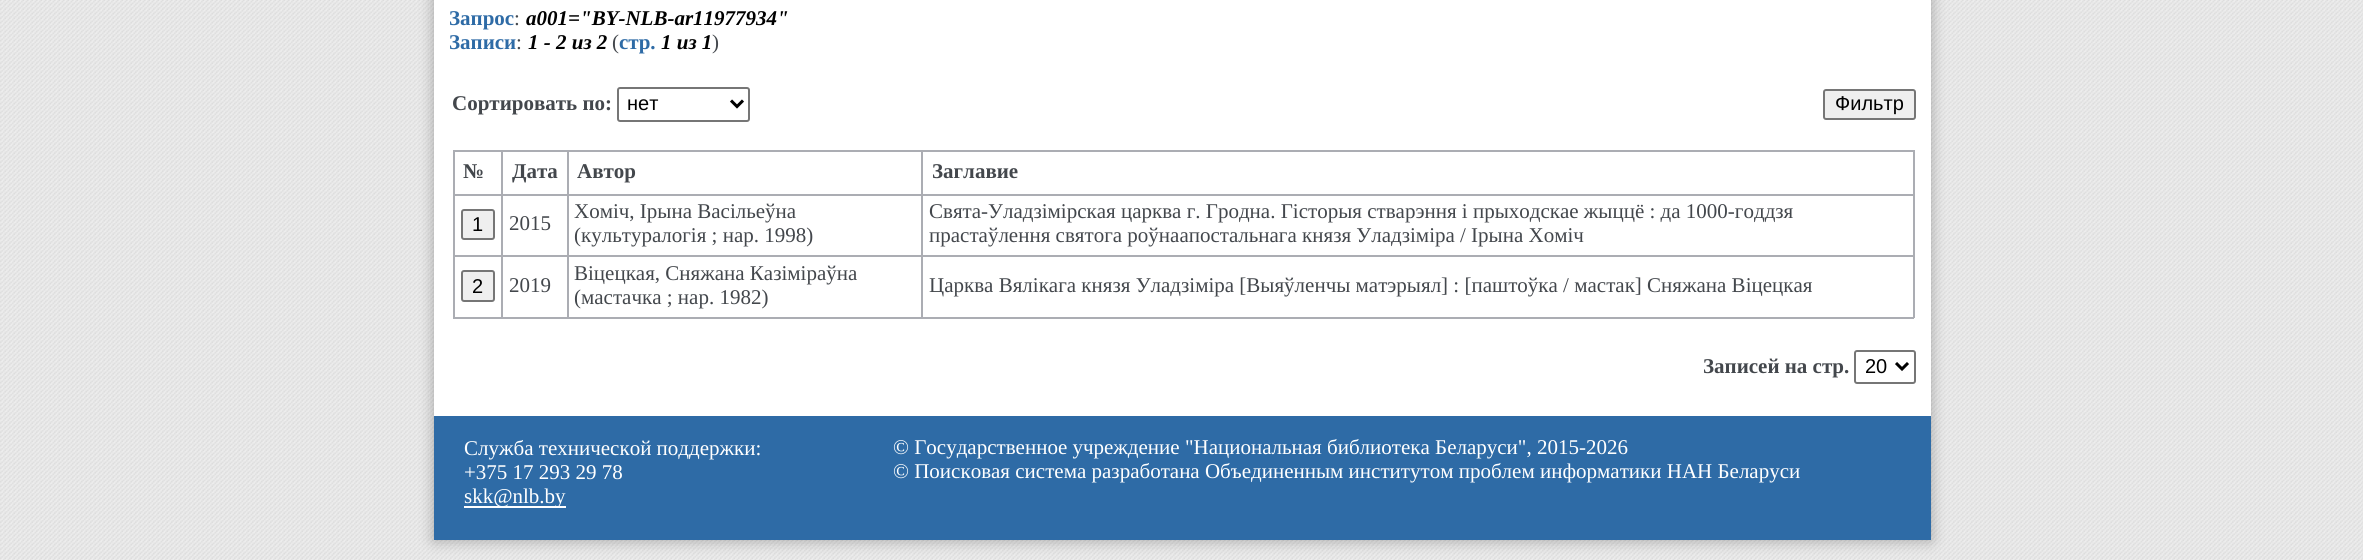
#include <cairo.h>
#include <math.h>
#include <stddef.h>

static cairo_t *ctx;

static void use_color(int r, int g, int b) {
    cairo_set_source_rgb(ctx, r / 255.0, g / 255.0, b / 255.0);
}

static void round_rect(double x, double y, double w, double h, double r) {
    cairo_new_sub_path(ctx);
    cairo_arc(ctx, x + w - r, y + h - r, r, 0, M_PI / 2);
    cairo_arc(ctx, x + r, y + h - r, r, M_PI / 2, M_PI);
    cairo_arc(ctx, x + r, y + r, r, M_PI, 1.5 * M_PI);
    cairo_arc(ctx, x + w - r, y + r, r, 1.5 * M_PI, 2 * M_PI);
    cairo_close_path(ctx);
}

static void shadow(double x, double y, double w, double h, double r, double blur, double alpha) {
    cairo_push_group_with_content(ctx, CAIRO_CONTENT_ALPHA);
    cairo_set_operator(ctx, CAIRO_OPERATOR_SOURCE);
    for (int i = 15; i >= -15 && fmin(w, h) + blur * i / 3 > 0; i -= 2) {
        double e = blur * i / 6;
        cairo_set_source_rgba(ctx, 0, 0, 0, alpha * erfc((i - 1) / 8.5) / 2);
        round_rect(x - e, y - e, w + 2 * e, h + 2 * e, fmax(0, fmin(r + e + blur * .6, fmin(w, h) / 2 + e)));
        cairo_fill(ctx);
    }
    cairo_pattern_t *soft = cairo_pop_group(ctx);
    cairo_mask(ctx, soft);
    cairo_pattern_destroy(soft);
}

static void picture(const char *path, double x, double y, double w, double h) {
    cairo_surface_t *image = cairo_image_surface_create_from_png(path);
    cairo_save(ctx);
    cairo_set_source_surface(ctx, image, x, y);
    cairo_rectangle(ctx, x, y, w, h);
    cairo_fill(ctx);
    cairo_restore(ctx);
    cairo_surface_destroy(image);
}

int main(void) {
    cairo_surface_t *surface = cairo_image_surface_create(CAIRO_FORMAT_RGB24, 2363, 560);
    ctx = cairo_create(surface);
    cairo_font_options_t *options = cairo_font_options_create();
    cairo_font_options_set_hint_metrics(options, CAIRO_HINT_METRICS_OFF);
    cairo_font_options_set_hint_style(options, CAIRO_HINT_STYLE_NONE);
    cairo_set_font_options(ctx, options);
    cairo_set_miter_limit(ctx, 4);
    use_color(255, 255, 255);
    cairo_paint(ctx);
    picture("img1.png", 0, 0, 2363, 560);
    use_color(0, 0, 0);
    shadow(434, -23, 1497, 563, 0, 7.5, 0.3);
    use_color(255, 255, 255);
    cairo_rectangle(ctx, 434, 0, 1497, 416);
    cairo_fill(ctx);
    cairo_select_font_face(ctx, "Liberation Serif", CAIRO_FONT_SLANT_NORMAL, CAIRO_FONT_WEIGHT_BOLD);
    cairo_set_font_size(ctx, 21);
    use_color(46, 107, 166);
    cairo_move_to(ctx, 449, 25);
    cairo_show_text(ctx, "Запрос");
    cairo_select_font_face(ctx, "Liberation Serif", CAIRO_FONT_SLANT_NORMAL, CAIRO_FONT_WEIGHT_NORMAL);
    use_color(67, 71, 76);
    cairo_move_to(ctx, 514, 25);
    cairo_show_text(ctx, ":");
    cairo_select_font_face(ctx, "Liberation Serif", CAIRO_FONT_SLANT_ITALIC, CAIRO_FONT_WEIGHT_BOLD);
    use_color(0, 0, 0);
    cairo_move_to(ctx, 526, 25);
    cairo_show_text(ctx, "a001=\"BY-NLB-ar11977934\"");
    cairo_select_font_face(ctx, "Liberation Serif", CAIRO_FONT_SLANT_NORMAL, CAIRO_FONT_WEIGHT_BOLD);
    use_color(46, 107, 166);
    cairo_move_to(ctx, 449, 49);
    cairo_show_text(ctx, "Записи");
    cairo_select_font_face(ctx, "Liberation Serif", CAIRO_FONT_SLANT_NORMAL, CAIRO_FONT_WEIGHT_NORMAL);
    use_color(67, 71, 76);
    cairo_move_to(ctx, 516, 49);
    cairo_show_text(ctx, ":");
    cairo_select_font_face(ctx, "Liberation Serif", CAIRO_FONT_SLANT_ITALIC, CAIRO_FONT_WEIGHT_BOLD);
    use_color(0, 0, 0);
    cairo_move_to(ctx, 528, 49);
    cairo_show_text(ctx, "1 - 2 из 2");
    cairo_select_font_face(ctx, "Liberation Serif", CAIRO_FONT_SLANT_NORMAL, CAIRO_FONT_WEIGHT_NORMAL);
    use_color(67, 71, 76);
    cairo_move_to(ctx, 612, 49);
    cairo_show_text(ctx, "(");
    cairo_select_font_face(ctx, "Liberation Serif", CAIRO_FONT_SLANT_NORMAL, CAIRO_FONT_WEIGHT_BOLD);
    use_color(46, 107, 166);
    cairo_move_to(ctx, 619, 49);
    cairo_show_text(ctx, "стр.");
    cairo_select_font_face(ctx, "Liberation Serif", CAIRO_FONT_SLANT_ITALIC, CAIRO_FONT_WEIGHT_BOLD);
    use_color(0, 0, 0);
    cairo_move_to(ctx, 661, 49);
    cairo_show_text(ctx, "1 из 1");
    cairo_select_font_face(ctx, "Liberation Serif", CAIRO_FONT_SLANT_NORMAL, CAIRO_FONT_WEIGHT_NORMAL);
    use_color(67, 71, 76);
    cairo_move_to(ctx, 712, 49);
    cairo_show_text(ctx, ")");
    cairo_select_font_face(ctx, "Liberation Serif", CAIRO_FONT_SLANT_NORMAL, CAIRO_FONT_WEIGHT_BOLD);
    cairo_move_to(ctx, 452, 110);
    cairo_show_text(ctx, "Сортировать по:");
    round_rect(618, 88, 131, 33, 2);
    use_color(118, 118, 118);
    cairo_stroke(ctx);
    cairo_new_path(ctx);
    cairo_move_to(ctx, 731, 100.5);
    cairo_line_to(ctx, 737, 106.5);
    cairo_line_to(ctx, 743, 100.5);
    use_color(0, 0, 0);
    cairo_set_line_width(ctx, 3);
    cairo_stroke(ctx);
    cairo_select_font_face(ctx, "Liberation Sans", CAIRO_FONT_SLANT_NORMAL, CAIRO_FONT_WEIGHT_NORMAL);
    cairo_set_font_size(ctx, 20);
    cairo_move_to(ctx, 627, 110);
    cairo_show_text(ctx, "нет");
    use_color(239, 239, 239);
    round_rect(1824, 90, 91, 29, 2);
    cairo_fill_preserve(ctx);
    use_color(118, 118, 118);
    cairo_set_line_width(ctx, 2);
    cairo_stroke(ctx);
    use_color(0, 0, 0);
    cairo_move_to(ctx, 1835, 110);
    cairo_show_text(ctx, "Фильтр");
    use_color(171, 173, 179);
    cairo_rectangle(ctx, 921, 150, 993, 2);
    cairo_fill(ctx);
    cairo_rectangle(ctx, 921, 194, 993, 2);
    cairo_fill(ctx);
    cairo_rectangle(ctx, 921, 255, 993, 2);
    cairo_fill(ctx);
    cairo_rectangle(ctx, 1913, 255, 2, 63);
    cairo_fill(ctx);
    cairo_rectangle(ctx, 921, 317, 993, 2);
    cairo_fill(ctx);
    cairo_rectangle(ctx, 921, 255, 2, 63);
    cairo_fill(ctx);
    cairo_rectangle(ctx, 567, 255, 356, 2);
    cairo_fill(ctx);
    cairo_rectangle(ctx, 921, 194, 2, 63);
    cairo_fill(ctx);
    cairo_rectangle(ctx, 567, 194, 356, 2);
    cairo_fill(ctx);
    cairo_rectangle(ctx, 921, 150, 2, 45);
    cairo_fill(ctx);
    cairo_rectangle(ctx, 567, 150, 356, 2);
    cairo_fill(ctx);
    cairo_rectangle(ctx, 567, 317, 356, 2);
    cairo_fill(ctx);
    cairo_rectangle(ctx, 567, 255, 2, 63);
    cairo_fill(ctx);
    cairo_rectangle(ctx, 501, 255, 68, 2);
    cairo_fill(ctx);
    cairo_rectangle(ctx, 567, 194, 2, 63);
    cairo_fill(ctx);
    cairo_rectangle(ctx, 501, 194, 68, 2);
    cairo_fill(ctx);
    cairo_rectangle(ctx, 567, 150, 2, 45);
    cairo_fill(ctx);
    cairo_rectangle(ctx, 501, 150, 68, 2);
    cairo_fill(ctx);
    cairo_rectangle(ctx, 501, 317, 68, 2);
    cairo_fill(ctx);
    cairo_rectangle(ctx, 501, 255, 2, 63);
    cairo_fill(ctx);
    cairo_rectangle(ctx, 453, 255, 50, 2);
    cairo_fill(ctx);
    cairo_rectangle(ctx, 501, 194, 2, 63);
    cairo_fill(ctx);
    cairo_rectangle(ctx, 453, 194, 50, 2);
    cairo_fill(ctx);
    cairo_rectangle(ctx, 501, 150, 2, 45);
    cairo_fill(ctx);
    cairo_rectangle(ctx, 453, 150, 50, 2);
    cairo_fill(ctx);
    cairo_rectangle(ctx, 453, 317, 50, 2);
    cairo_fill(ctx);
    cairo_rectangle(ctx, 453, 255, 2, 63);
    cairo_fill(ctx);
    cairo_rectangle(ctx, 453, 194, 2, 63);
    cairo_fill(ctx);
    cairo_rectangle(ctx, 453, 150, 2, 45);
    cairo_fill(ctx);
    cairo_select_font_face(ctx, "Liberation Serif", CAIRO_FONT_SLANT_NORMAL, CAIRO_FONT_WEIGHT_BOLD);
    cairo_set_font_size(ctx, 21);
    use_color(67, 71, 76);
    cairo_move_to(ctx, 463, 178);
    cairo_show_text(ctx, "№");
    cairo_move_to(ctx, 512, 178);
    cairo_show_text(ctx, "Дата");
    cairo_move_to(ctx, 577, 178);
    cairo_show_text(ctx, "Автор");
    use_color(171, 173, 179);
    cairo_rectangle(ctx, 1913, 194, 2, 63);
    cairo_fill(ctx);
    cairo_rectangle(ctx, 1913, 150, 2, 45);
    cairo_fill(ctx);
    use_color(67, 71, 76);
    cairo_move_to(ctx, 932, 178);
    cairo_show_text(ctx, "Заглавие");
    use_color(239, 239, 239);
    round_rect(462, 210, 32, 29, 2);
    cairo_fill_preserve(ctx);
    use_color(118, 118, 118);
    cairo_stroke(ctx);
    cairo_select_font_face(ctx, "Liberation Sans", CAIRO_FONT_SLANT_NORMAL, CAIRO_FONT_WEIGHT_NORMAL);
    cairo_set_font_size(ctx, 20);
    use_color(0, 0, 0);
    cairo_move_to(ctx, 472, 231);
    cairo_show_text(ctx, "1");
    cairo_select_font_face(ctx, "Liberation Serif", CAIRO_FONT_SLANT_NORMAL, CAIRO_FONT_WEIGHT_NORMAL);
    cairo_set_font_size(ctx, 21);
    use_color(67, 71, 76);
    cairo_move_to(ctx, 509, 230);
    cairo_show_text(ctx, "2015");
    cairo_move_to(ctx, 574, 218);
    cairo_show_text(ctx, "Хоміч, Ірына Васільеўна");
    cairo_move_to(ctx, 574, 242);
    cairo_show_text(ctx, "(культуралогія ; нар. 1998)");
    cairo_move_to(ctx, 929, 218);
    cairo_show_text(ctx, "Свята-Уладзімірская царква г. Гродна. Гісторыя стварэння і прыходскае жыццё : да 1000-годдзя");
    cairo_move_to(ctx, 929, 242);
    cairo_show_text(ctx, "прастаўлення святога роўнаапостальнага князя Уладзіміра / Ірына Хоміч");
    use_color(239, 239, 239);
    round_rect(462, 271, 32, 30, 2);
    cairo_fill_preserve(ctx);
    use_color(118, 118, 118);
    cairo_stroke(ctx);
    cairo_select_font_face(ctx, "Liberation Sans", CAIRO_FONT_SLANT_NORMAL, CAIRO_FONT_WEIGHT_NORMAL);
    cairo_set_font_size(ctx, 20);
    use_color(0, 0, 0);
    cairo_move_to(ctx, 472, 293);
    cairo_show_text(ctx, "2");
    cairo_select_font_face(ctx, "Liberation Serif", CAIRO_FONT_SLANT_NORMAL, CAIRO_FONT_WEIGHT_NORMAL);
    cairo_set_font_size(ctx, 21);
    use_color(67, 71, 76);
    cairo_move_to(ctx, 509, 292);
    cairo_show_text(ctx, "2019");
    cairo_move_to(ctx, 574, 280);
    cairo_show_text(ctx, "Віцецкая, Сняжана Казіміраўна");
    cairo_move_to(ctx, 574, 304);
    cairo_show_text(ctx, "(мастачка ; нар. 1982)");
    cairo_move_to(ctx, 929, 292);
    cairo_show_text(ctx, "Царква Вялікага князя Уладзіміра [Выяўленчы матэрыял] : [паштоўка / мастак] Сняжана Віцецкая");
    cairo_select_font_face(ctx, "Liberation Serif", CAIRO_FONT_SLANT_NORMAL, CAIRO_FONT_WEIGHT_BOLD);
    cairo_move_to(ctx, 1703, 373);
    cairo_show_text(ctx, "Записей на стр.");
    round_rect(1855, 351, 60, 32, 2);
    use_color(118, 118, 118);
    cairo_stroke(ctx);
    cairo_new_path(ctx);
    cairo_move_to(ctx, 1896, 363);
    cairo_line_to(ctx, 1902, 369);
    cairo_line_to(ctx, 1908, 363);
    use_color(0, 0, 0);
    cairo_set_line_width(ctx, 3);
    cairo_stroke(ctx);
    cairo_select_font_face(ctx, "Liberation Sans", CAIRO_FONT_SLANT_NORMAL, CAIRO_FONT_WEIGHT_NORMAL);
    cairo_set_font_size(ctx, 20);
    cairo_move_to(ctx, 1865, 373);
    cairo_show_text(ctx, "20");
    use_color(46, 107, 166);
    cairo_rectangle(ctx, 434, 416, 1497, 124);
    cairo_fill(ctx);
    cairo_select_font_face(ctx, "Liberation Serif", CAIRO_FONT_SLANT_NORMAL, CAIRO_FONT_WEIGHT_NORMAL);
    cairo_set_font_size(ctx, 21);
    use_color(255, 255, 255);
    cairo_move_to(ctx, 464, 455);
    cairo_show_text(ctx, "Служба технической поддержки:");
    cairo_move_to(ctx, 464, 479);
    cairo_show_text(ctx, "+375 17 293 29 78");
    cairo_rectangle(ctx, 464, 506, 102, 2);
    cairo_fill(ctx);
    cairo_move_to(ctx, 464, 503);
    cairo_show_text(ctx, "skk@nlb.by");
    cairo_move_to(ctx, 893, 454);
    cairo_show_text(ctx, "© Государственное учреждение \"Национальная библиотека Беларуси\", 2015-2026");
    cairo_move_to(ctx, 893, 478);
    cairo_show_text(ctx, "© Поисковая система разработана Объединенным институтом проблем информатики НАН Беларуси");
    cairo_surface_write_to_png(surface, "result.png");
    cairo_font_options_destroy(options);
    cairo_destroy(ctx);
    cairo_surface_destroy(surface);
    return 0;
}
